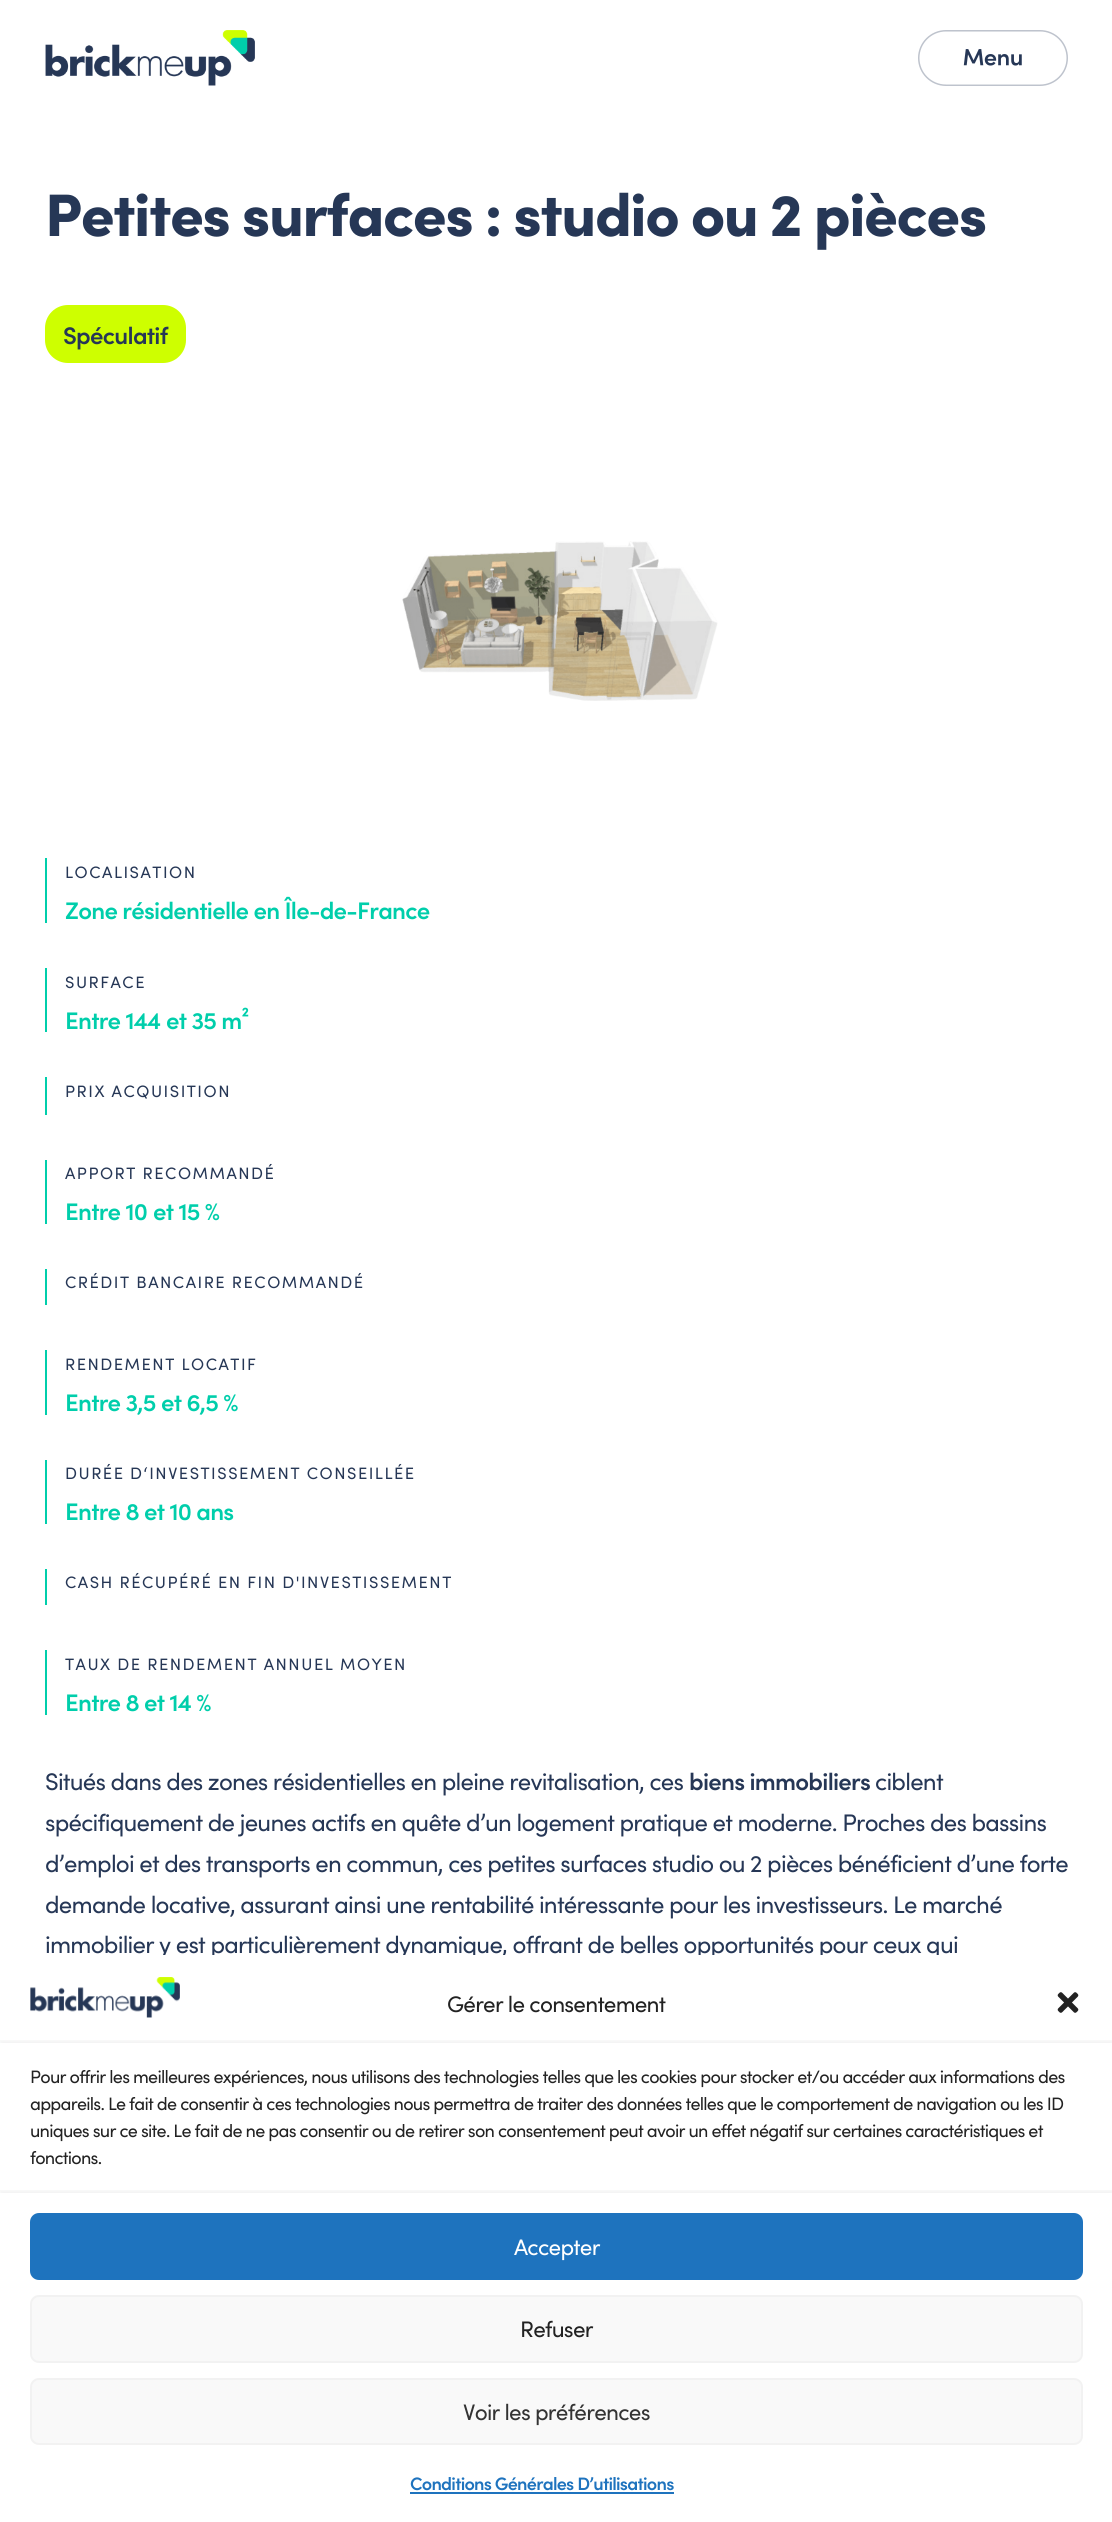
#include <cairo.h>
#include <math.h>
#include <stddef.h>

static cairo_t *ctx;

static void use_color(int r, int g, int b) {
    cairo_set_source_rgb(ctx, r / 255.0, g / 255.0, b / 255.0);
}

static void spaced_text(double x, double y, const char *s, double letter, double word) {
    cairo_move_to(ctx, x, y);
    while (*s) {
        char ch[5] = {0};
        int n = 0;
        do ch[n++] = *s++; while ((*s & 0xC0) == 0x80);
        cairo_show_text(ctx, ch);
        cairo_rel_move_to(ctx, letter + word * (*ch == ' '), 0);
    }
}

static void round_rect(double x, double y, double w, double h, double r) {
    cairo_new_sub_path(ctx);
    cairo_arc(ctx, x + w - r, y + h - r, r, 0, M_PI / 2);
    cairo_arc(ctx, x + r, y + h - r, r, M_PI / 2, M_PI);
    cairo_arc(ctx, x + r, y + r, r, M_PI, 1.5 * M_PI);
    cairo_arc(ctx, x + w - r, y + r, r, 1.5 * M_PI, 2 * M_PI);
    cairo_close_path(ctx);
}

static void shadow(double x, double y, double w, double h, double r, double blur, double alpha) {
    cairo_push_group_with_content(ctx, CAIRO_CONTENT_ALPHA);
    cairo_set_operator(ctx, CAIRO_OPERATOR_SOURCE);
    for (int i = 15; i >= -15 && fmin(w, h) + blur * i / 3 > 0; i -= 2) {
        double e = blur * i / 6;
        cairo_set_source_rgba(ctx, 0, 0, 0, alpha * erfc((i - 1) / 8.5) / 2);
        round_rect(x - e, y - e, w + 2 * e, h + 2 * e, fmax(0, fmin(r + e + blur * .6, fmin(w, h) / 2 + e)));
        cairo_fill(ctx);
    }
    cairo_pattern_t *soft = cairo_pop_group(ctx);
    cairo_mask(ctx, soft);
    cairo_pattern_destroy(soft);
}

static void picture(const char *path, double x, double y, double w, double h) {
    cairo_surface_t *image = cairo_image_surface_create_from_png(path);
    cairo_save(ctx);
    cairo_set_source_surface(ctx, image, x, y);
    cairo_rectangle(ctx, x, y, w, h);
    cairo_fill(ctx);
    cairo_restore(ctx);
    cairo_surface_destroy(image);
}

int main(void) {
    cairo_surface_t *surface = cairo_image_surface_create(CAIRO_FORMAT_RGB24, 1112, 2522);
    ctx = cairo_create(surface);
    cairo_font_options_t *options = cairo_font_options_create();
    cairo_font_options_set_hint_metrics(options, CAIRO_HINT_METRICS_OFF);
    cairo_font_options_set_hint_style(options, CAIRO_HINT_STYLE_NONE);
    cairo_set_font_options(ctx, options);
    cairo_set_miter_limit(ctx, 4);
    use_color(255, 255, 255);
    cairo_paint(ctx);
    picture("img1.png", 45, 30, 210, 56);
    picture("img2.png", 918, 30, 150, 56);
    cairo_select_font_face(ctx, "Sofia Black", CAIRO_FONT_SLANT_NORMAL, CAIRO_FONT_WEIGHT_NORMAL);
    cairo_set_font_size(ctx, 60);
    use_color(38, 55, 86);
    spaced_text(45, 236, "Petites surfaces : studio ou 2 pièces", -1.5, 0);
    use_color(206, 255, 0);
    round_rect(45, 305, 141, 58, 23);
    cairo_fill(ctx);
    cairo_select_font_face(ctx, "Sofia SemiBold", CAIRO_FONT_SLANT_NORMAL, CAIRO_FONT_WEIGHT_NORMAL);
    cairo_set_font_size(ctx, 24);
    use_color(38, 55, 86);
    spaced_text(63, 344, "Spéculatif", -0.75, 0);
    picture("img3.png", 402, 541, 316, 160);
    use_color(0, 206, 171);
    cairo_rectangle(ctx, 45, 858, 2, 65);
    cairo_fill(ctx);
    cairo_select_font_face(ctx, "Sofia", CAIRO_FONT_SLANT_NORMAL, CAIRO_FONT_WEIGHT_NORMAL);
    cairo_set_font_size(ctx, 16.5);
    use_color(38, 55, 86);
    spaced_text(65, 878, "LOCALISATION", 1.5, 0);
    cairo_select_font_face(ctx, "Sofia SemiBold", CAIRO_FONT_SLANT_NORMAL, CAIRO_FONT_WEIGHT_NORMAL);
    cairo_set_font_size(ctx, 24);
    use_color(0, 206, 171);
    spaced_text(65, 919, "Zone résidentielle en Île-de-France", -0.75, 0);
    cairo_rectangle(ctx, 45, 968, 2, 64);
    cairo_fill(ctx);
    cairo_select_font_face(ctx, "Sofia", CAIRO_FONT_SLANT_NORMAL, CAIRO_FONT_WEIGHT_NORMAL);
    cairo_set_font_size(ctx, 16.5);
    use_color(38, 55, 86);
    spaced_text(65, 988, "SURFACE", 1.5, 0);
    cairo_select_font_face(ctx, "Sofia SemiBold", CAIRO_FONT_SLANT_NORMAL, CAIRO_FONT_WEIGHT_NORMAL);
    cairo_set_font_size(ctx, 24);
    use_color(0, 206, 171);
    spaced_text(65, 1029, "Entre 144", -0.75, 0);
    spaced_text(166, 1029, "et 35 m²", -0.75, 0);
    cairo_rectangle(ctx, 45, 1077, 2, 38);
    cairo_fill(ctx);
    cairo_select_font_face(ctx, "Sofia", CAIRO_FONT_SLANT_NORMAL, CAIRO_FONT_WEIGHT_NORMAL);
    cairo_set_font_size(ctx, 16.5);
    use_color(38, 55, 86);
    spaced_text(65, 1097, "PRIX ACQUISITION", 1.5, 0);
    use_color(0, 206, 171);
    cairo_rectangle(ctx, 45, 1160, 2, 64);
    cairo_fill(ctx);
    use_color(38, 55, 86);
    spaced_text(65, 1179, "APPORT RECOMMANDÉ", 1.5, 0);
    cairo_select_font_face(ctx, "Sofia SemiBold", CAIRO_FONT_SLANT_NORMAL, CAIRO_FONT_WEIGHT_NORMAL);
    cairo_set_font_size(ctx, 24);
    use_color(0, 206, 171);
    spaced_text(65, 1220, "Entre 10", -0.75, 0);
    spaced_text(153, 1220, "et 15 %", -0.75, 0);
    cairo_rectangle(ctx, 45, 1269, 2, 36);
    cairo_fill(ctx);
    cairo_select_font_face(ctx, "Sofia", CAIRO_FONT_SLANT_NORMAL, CAIRO_FONT_WEIGHT_NORMAL);
    cairo_set_font_size(ctx, 16.5);
    use_color(38, 55, 86);
    spaced_text(65, 1288, "CRÉDIT BANCAIRE RECOMMANDÉ", 1.5, 0);
    use_color(0, 206, 171);
    cairo_rectangle(ctx, 45, 1350, 2, 65);
    cairo_fill(ctx);
    use_color(38, 55, 86);
    spaced_text(65, 1370, "RENDEMENT LOCATIF", 1.5, 0);
    cairo_select_font_face(ctx, "Sofia SemiBold", CAIRO_FONT_SLANT_NORMAL, CAIRO_FONT_WEIGHT_NORMAL);
    cairo_set_font_size(ctx, 24);
    use_color(0, 206, 171);
    spaced_text(65, 1411, "Entre 3,5", -0.75, 0);
    spaced_text(161, 1411, "et 6,5 %", -0.75, 0);
    cairo_rectangle(ctx, 45, 1460, 2, 64);
    cairo_fill(ctx);
    cairo_select_font_face(ctx, "Sofia", CAIRO_FONT_SLANT_NORMAL, CAIRO_FONT_WEIGHT_NORMAL);
    cairo_set_font_size(ctx, 16.5);
    use_color(38, 55, 86);
    spaced_text(65, 1479, "DURÉE D‘INVESTISSEMENT CONSEILLÉE", 1.5, 0);
    cairo_select_font_face(ctx, "Sofia SemiBold", CAIRO_FONT_SLANT_NORMAL, CAIRO_FONT_WEIGHT_NORMAL);
    cairo_set_font_size(ctx, 24);
    use_color(0, 206, 171);
    spaced_text(65, 1520, "Entre 8", -0.75, 0);
    spaced_text(144, 1520, "et 10 ans", -0.75, 0);
    cairo_rectangle(ctx, 45, 1569, 2, 36);
    cairo_fill(ctx);
    cairo_select_font_face(ctx, "Sofia", CAIRO_FONT_SLANT_NORMAL, CAIRO_FONT_WEIGHT_NORMAL);
    cairo_set_font_size(ctx, 16.5);
    use_color(38, 55, 86);
    spaced_text(65, 1588, "CASH RÉCUPÉRÉ EN FIN D'INVESTISSEMENT", 1.5, 0);
    use_color(0, 206, 171);
    cairo_rectangle(ctx, 45, 1650, 2, 65);
    cairo_fill(ctx);
    use_color(38, 55, 86);
    spaced_text(65, 1670, "TAUX DE RENDEMENT ANNUEL MOYEN", 1.5, 0);
    cairo_select_font_face(ctx, "Sofia SemiBold", CAIRO_FONT_SLANT_NORMAL, CAIRO_FONT_WEIGHT_NORMAL);
    cairo_set_font_size(ctx, 24);
    use_color(0, 206, 171);
    spaced_text(65, 1711, "Entre 8", -0.75, 0);
    spaced_text(144, 1711, "et 14 %", -0.75, 0);
    cairo_select_font_face(ctx, "Sofia", CAIRO_FONT_SLANT_NORMAL, CAIRO_FONT_WEIGHT_NORMAL);
    use_color(38, 55, 86);
    spaced_text(45, 1790, "Situés dans des zones résidentielles en pleine revitalisation, ces", -0.75, 0);
    cairo_select_font_face(ctx, "Sofia SemiBold", CAIRO_FONT_SLANT_NORMAL, CAIRO_FONT_WEIGHT_NORMAL);
    spaced_text(689, 1790, "biens immobiliers", -0.75, 0);
    cairo_select_font_face(ctx, "Sofia", CAIRO_FONT_SLANT_NORMAL, CAIRO_FONT_WEIGHT_NORMAL);
    spaced_text(875, 1790, "ciblent", -0.75, 0);
    spaced_text(45, 1831, "spécifiquement de jeunes actifs en quête d’un logement pratique et moderne. Proches des bassins", -0.75, 0);
    spaced_text(45, 1872, "d’emploi et des transports en commun, ces petites surfaces studio ou 2 pièces bénéficient d’une forte", -0.75, 0);
    spaced_text(45, 1913, "demande locative, assurant ainsi une rentabilité intéressante pour les investisseurs. Le marché", -0.75, 0);
    spaced_text(45, 1953, "immobilier y est particulièrement dynamique, offrant de belles opportunités pour ceux qui", -0.75, 0);
    use_color(255, 255, 255);
    round_rect(0, 1955, 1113, 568, 18);
    cairo_fill(ctx);
    picture("img4.png", 30, 1977, 150, 41);
    cairo_set_font_size(ctx, 22.5);
    use_color(34, 34, 34);
    spaced_text(447, 2012, "Gérer le consentement", -0.75, 0);
    picture("img5.png", 1057, 1992, 22, 21);
    cairo_save(ctx);
    cairo_rectangle(ctx, 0, 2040, 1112, 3);
    cairo_clip(ctx);
    use_color(0, 0, 0);
    shadow(0, 2040, 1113, 5, 0, 2, 0.05);
    cairo_restore(ctx);
    cairo_set_font_size(ctx, 18);
    spaced_text(30, 2083, "Pour offrir les meilleures expériences, nous utilisons des technologies telles que les cookies pour stocker et/ou accéder aux informations des", -0.75, 0);
    spaced_text(30, 2110, "appareils. Le fait de consentir à ces technologies nous permettra de traiter des données telles que le comportement de navigation ou les ID", -0.75, 0);
    spaced_text(30, 2137, "uniques sur ce site. Le fait de ne pas consentir ou de retirer son consentement peut avoir un effet négatif sur certaines caractéristiques et", -0.75, 0);
    spaced_text(30, 2164, "fonctions.", -0.75, 0);
    cairo_save(ctx);
    cairo_rectangle(ctx, 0, 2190, 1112, 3);
    cairo_clip(ctx);
    use_color(0, 0, 0);
    shadow(0, 2190, 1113, 5, 0, 2, 0.05);
    cairo_restore(ctx);
    use_color(30, 115, 190);
    round_rect(31, 2214, 1051, 65, 8);
    cairo_fill_preserve(ctx);
    cairo_stroke(ctx);
    cairo_set_font_size(ctx, 22.5);
    use_color(255, 255, 255);
    spaced_text(514, 2255, "Accepter", -0.75, 0);
    use_color(249, 249, 249);
    round_rect(31, 2296, 1051, 66, 8);
    cairo_fill_preserve(ctx);
    use_color(242, 242, 242);
    cairo_stroke(ctx);
    use_color(34, 34, 34);
    spaced_text(520, 2337, "Refuser", -0.75, 0);
    use_color(249, 249, 249);
    round_rect(31, 2379, 1051, 65, 8);
    cairo_fill_preserve(ctx);
    use_color(242, 242, 242);
    cairo_stroke(ctx);
    use_color(51, 51, 51);
    spaced_text(463, 2420, "Voir les préférences", -0.75, 0);
    cairo_select_font_face(ctx, "Sofia SemiBold", CAIRO_FONT_SLANT_NORMAL, CAIRO_FONT_WEIGHT_NORMAL);
    cairo_set_font_size(ctx, 18);
    use_color(30, 115, 190);
    spaced_text(410, 2490, "Conditions Générales D’utilisations", -0.75, 0);
    cairo_rectangle(ctx, 410, 2492, 264, 2);
    cairo_fill(ctx);
    cairo_surface_write_to_png(surface, "result.png");
    cairo_font_options_destroy(options);
    cairo_destroy(ctx);
    cairo_surface_destroy(surface);
    return 0;
}
